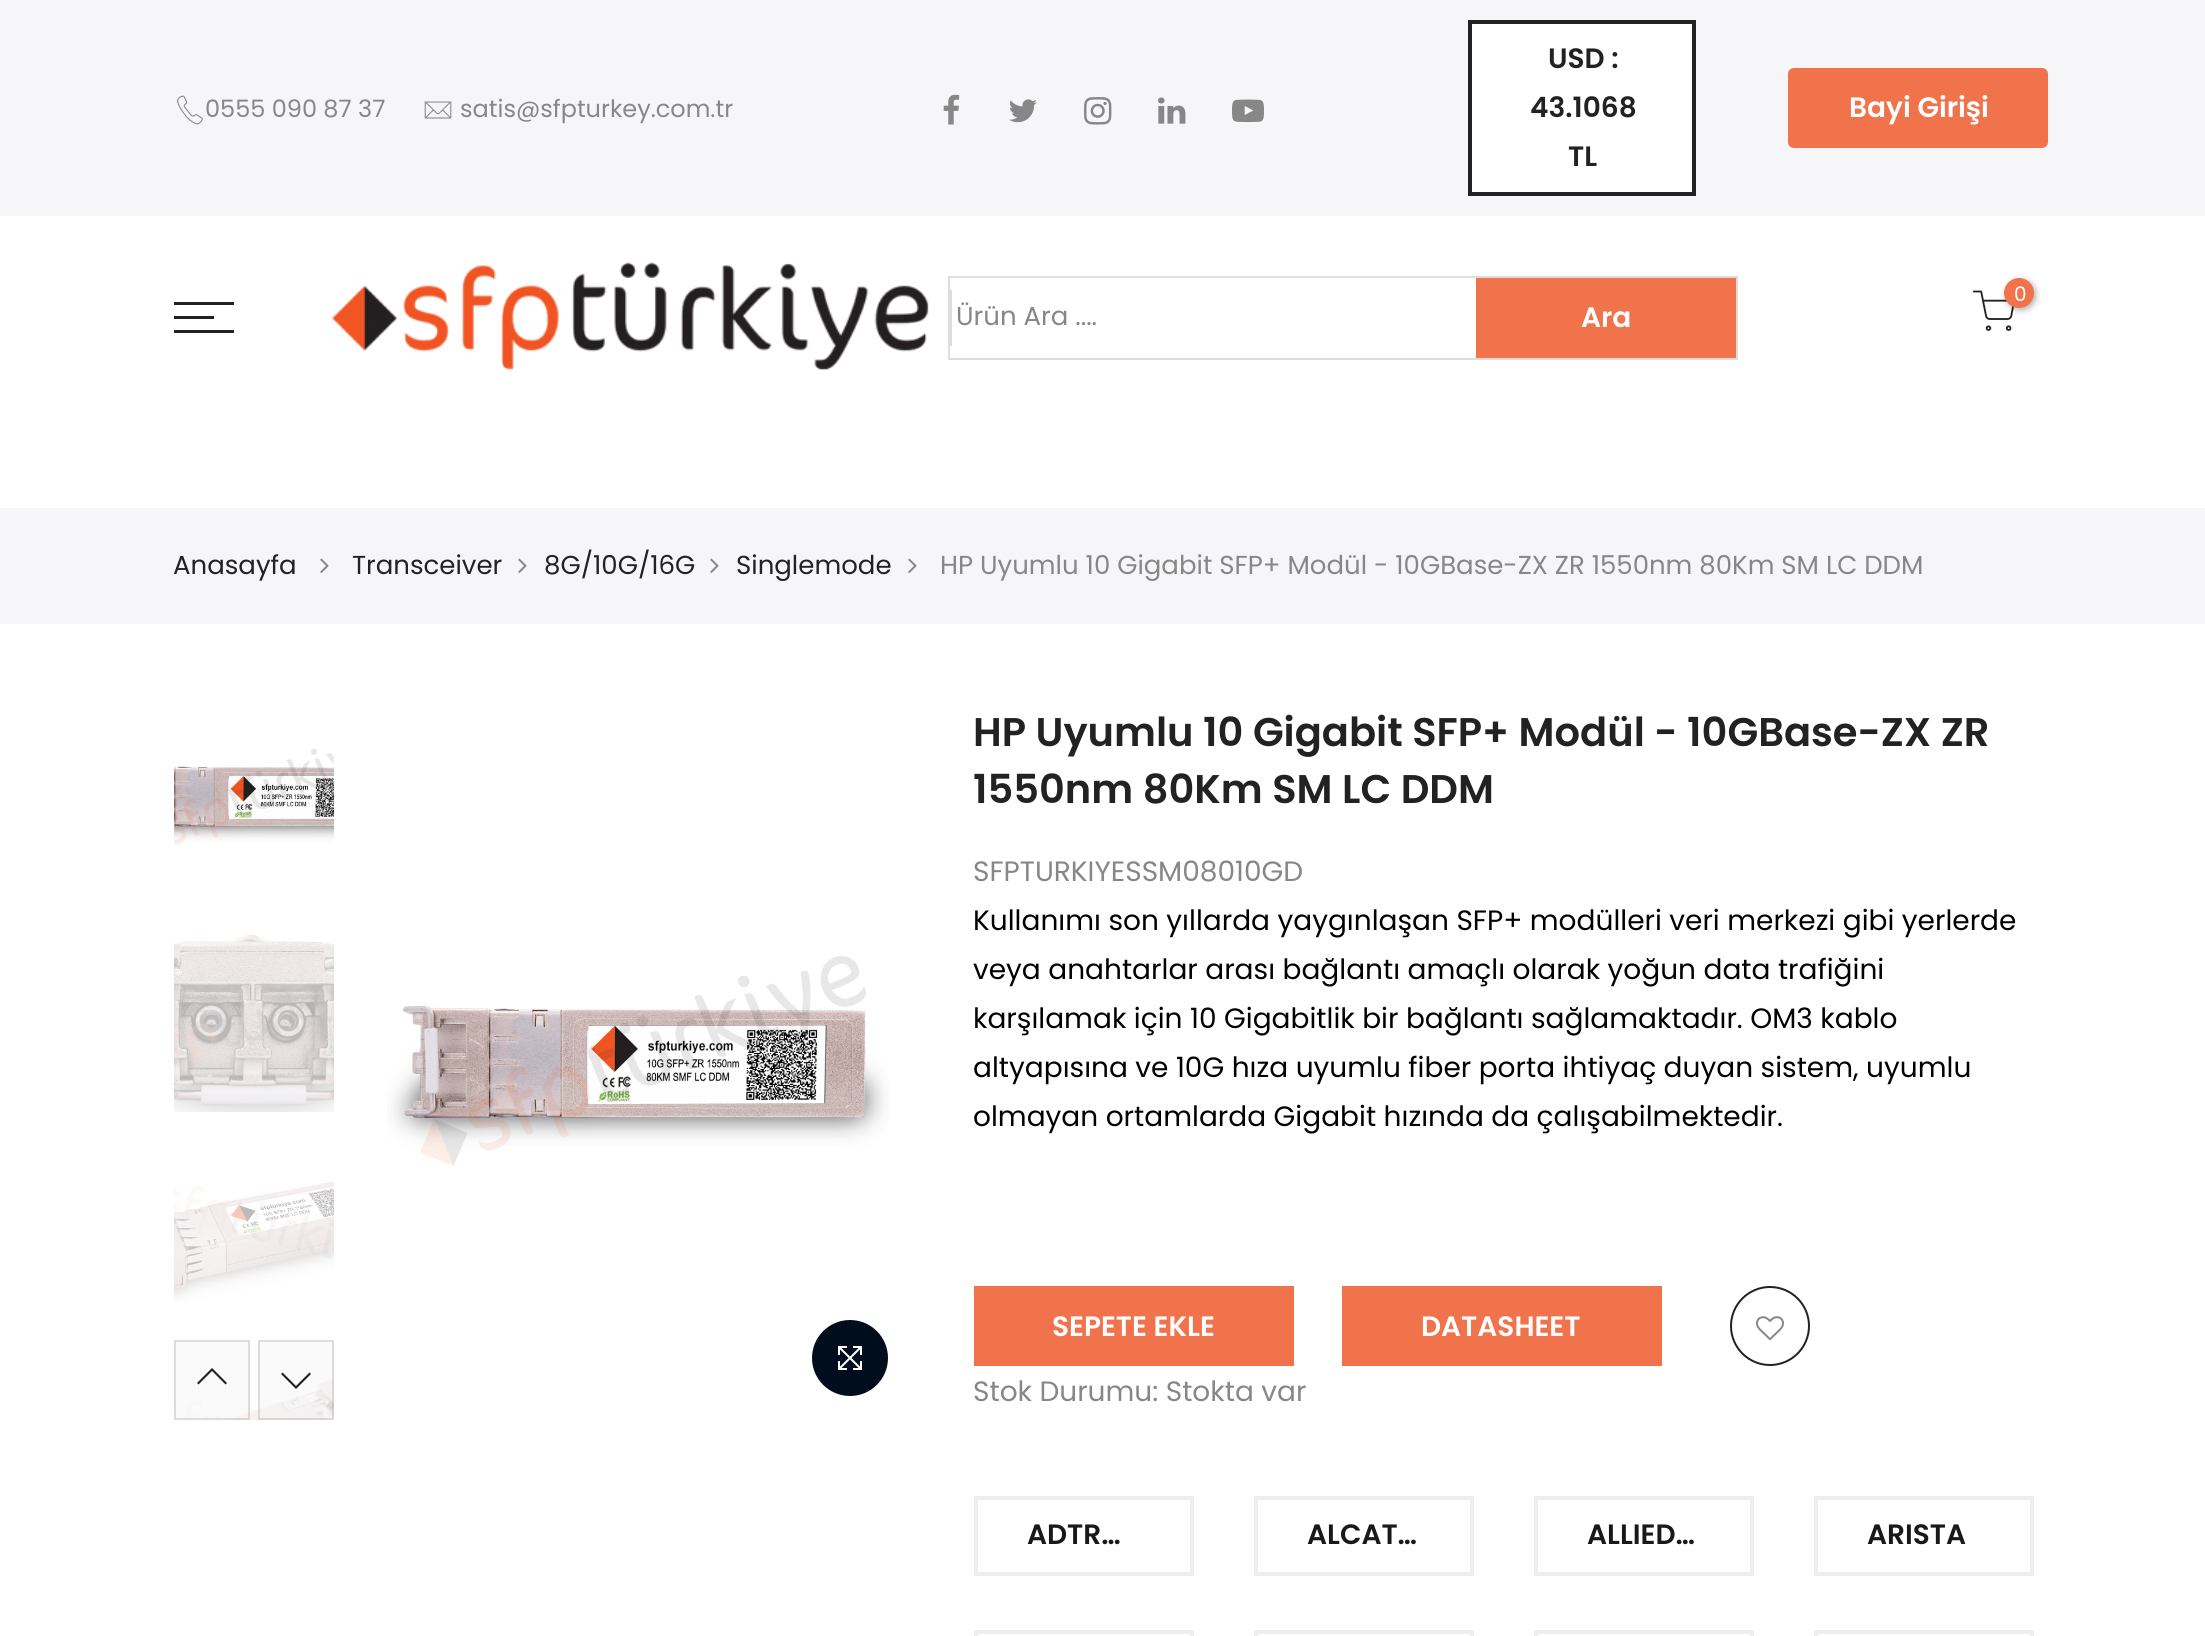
#include <cairo.h>
#include <math.h>
#include <stddef.h>

static cairo_t *ctx;

static void use_color(int r, int g, int b) {
    cairo_set_source_rgb(ctx, r / 255.0, g / 255.0, b / 255.0);
}

static void round_rect(double x, double y, double w, double h, double r) {
    cairo_new_sub_path(ctx);
    cairo_arc(ctx, x + w - r, y + h - r, r, 0, M_PI / 2);
    cairo_arc(ctx, x + r, y + h - r, r, M_PI / 2, M_PI);
    cairo_arc(ctx, x + r, y + r, r, M_PI, 1.5 * M_PI);
    cairo_arc(ctx, x + w - r, y + r, r, 1.5 * M_PI, 2 * M_PI);
    cairo_close_path(ctx);
}

static void shadow(double x, double y, double w, double h, double r, double blur, double alpha) {
    cairo_push_group_with_content(ctx, CAIRO_CONTENT_ALPHA);
    cairo_set_operator(ctx, CAIRO_OPERATOR_SOURCE);
    for (int i = 15; i >= -15 && fmin(w, h) + blur * i / 3 > 0; i -= 2) {
        double e = blur * i / 6;
        cairo_set_source_rgba(ctx, 0, 0, 0, alpha * erfc((i - 1) / 8.5) / 2);
        round_rect(x - e, y - e, w + 2 * e, h + 2 * e, fmax(0, fmin(r + e + blur * .6, fmin(w, h) / 2 + e)));
        cairo_fill(ctx);
    }
    cairo_pattern_t *soft = cairo_pop_group(ctx);
    cairo_mask(ctx, soft);
    cairo_pattern_destroy(soft);
}

static void picture(const char *path, double x, double y, double w, double h) {
    cairo_surface_t *image = cairo_image_surface_create_from_png(path);
    cairo_save(ctx);
    cairo_set_source_surface(ctx, image, x, y);
    cairo_rectangle(ctx, x, y, w, h);
    cairo_fill(ctx);
    cairo_restore(ctx);
    cairo_surface_destroy(image);
}

int main(void) {
    cairo_surface_t *surface = cairo_image_surface_create(CAIRO_FORMAT_RGB24, 2205, 1636);
    ctx = cairo_create(surface);
    cairo_font_options_t *options = cairo_font_options_create();
    cairo_font_options_set_hint_metrics(options, CAIRO_HINT_METRICS_OFF);
    cairo_font_options_set_hint_style(options, CAIRO_HINT_STYLE_NONE);
    cairo_set_font_options(ctx, options);
    cairo_set_miter_limit(ctx, 4);
    use_color(255, 255, 255);
    cairo_paint(ctx);
    use_color(246, 246, 248);
    cairo_rectangle(ctx, 0, 0, 2205, 216);
    cairo_fill(ctx);
    picture("img1.png", 177, 95, 26, 30);
    cairo_select_font_face(ctx, "Poppins", CAIRO_FONT_SLANT_NORMAL, CAIRO_FONT_WEIGHT_NORMAL);
    cairo_set_font_size(ctx, 24);
    use_color(135, 135, 135);
    cairo_move_to(ctx, 205, 117);
    cairo_show_text(ctx, "0555 090 87 37");
    picture("img2.png", 424, 101, 28, 18);
    cairo_move_to(ctx, 460, 117);
    cairo_show_text(ctx, "satis@sfpturkey.com.tr");
    picture("img3.png", 943, 94, 17, 31);
    picture("img4.png", 1009, 99, 28, 24);
    picture("img5.png", 1084, 97, 28, 28);
    picture("img6.png", 1158, 97, 28, 27);
    picture("img7.png", 1232, 99, 32, 24);
    use_color(255, 255, 255);
    cairo_rectangle(ctx, 1470, 22, 224, 172);
    cairo_fill_preserve(ctx);
    use_color(34, 34, 34);
    cairo_set_line_width(ctx, 4);
    cairo_stroke(ctx);
    cairo_select_font_face(ctx, "Poppins SemiBold", CAIRO_FONT_SLANT_NORMAL, CAIRO_FONT_WEIGHT_NORMAL);
    cairo_set_font_size(ctx, 28);
    cairo_move_to(ctx, 1548, 68);
    cairo_show_text(ctx, "USD :");
    cairo_move_to(ctx, 1530, 117);
    cairo_show_text(ctx, "43.1068");
    cairo_move_to(ctx, 1568, 166);
    cairo_show_text(ctx, "TL");
    use_color(241, 115, 76);
    round_rect(1788, 68, 260, 80, 6);
    cairo_fill(ctx);
    use_color(255, 255, 255);
    cairo_move_to(ctx, 1849, 117);
    cairo_show_text(ctx, "Bayi Girişi");
    picture("img8.png", 332, 262, 597, 108);
    picture("img9.png", 1972, 290, 42, 41);
    use_color(0, 0, 0);
    shadow(2006, 280, 30, 30, 15, 3, 0.3);
    use_color(241, 115, 76);
    cairo_arc(ctx, 2019, 293, 15, 0, 2 * M_PI);
    cairo_fill(ctx);
    cairo_select_font_face(ctx, "Poppins", CAIRO_FONT_SLANT_NORMAL, CAIRO_FONT_WEIGHT_NORMAL);
    cairo_set_font_size(ctx, 20);
    use_color(255, 255, 255);
    cairo_move_to(ctx, 2014, 301);
    cairo_show_text(ctx, "0");
    use_color(34, 34, 34);
    cairo_rectangle(ctx, 174, 302, 60, 3);
    cairo_fill(ctx);
    cairo_rectangle(ctx, 174, 316, 40, 3);
    cairo_fill(ctx);
    cairo_rectangle(ctx, 174, 330, 60, 3);
    cairo_fill(ctx);
    cairo_rectangle(ctx, 949, 277, 788, 82);
    use_color(221, 221, 221);
    cairo_set_line_width(ctx, 2);
    cairo_stroke(ctx);
    cairo_rectangle(ctx, 950, 290, 2, 56);
    cairo_fill(ctx);
    cairo_set_font_size(ctx, 26);
    use_color(135, 135, 135);
    cairo_move_to(ctx, 956, 325);
    cairo_show_text(ctx, "Ürün Ara ....");
    use_color(241, 115, 76);
    cairo_rectangle(ctx, 1476, 278, 260, 80);
    cairo_fill(ctx);
    cairo_select_font_face(ctx, "Poppins SemiBold", CAIRO_FONT_SLANT_NORMAL, CAIRO_FONT_WEIGHT_NORMAL);
    cairo_set_font_size(ctx, 28);
    use_color(255, 255, 255);
    cairo_move_to(ctx, 1581, 327);
    cairo_show_text(ctx, "Ara");
    use_color(246, 246, 248);
    cairo_rectangle(ctx, 0, 508, 2205, 116);
    cairo_fill(ctx);
    cairo_select_font_face(ctx, "Poppins", CAIRO_FONT_SLANT_NORMAL, CAIRO_FONT_WEIGHT_NORMAL);
    cairo_set_font_size(ctx, 26);
    use_color(34, 34, 34);
    cairo_move_to(ctx, 173, 574);
    cairo_show_text(ctx, "Anasayfa");
    picture("img10.png", 320, 558, 9, 15);
    cairo_move_to(ctx, 352, 574);
    cairo_show_text(ctx, "Transceiver");
    picture("img10.png", 518, 558, 9, 15);
    cairo_move_to(ctx, 544, 574);
    cairo_show_text(ctx, "8G/10G/16G");
    picture("img10.png", 710, 558, 9, 15);
    cairo_move_to(ctx, 736, 574);
    cairo_show_text(ctx, "Singlemode");
    picture("img10.png", 908, 558, 9, 15);
    use_color(135, 135, 135);
    cairo_move_to(ctx, 940, 574);
    cairo_show_text(ctx, "HP Uyumlu 10 Gigabit SFP+ Modül - 10GBase-ZX ZR 1550nm 80Km SM LC DDM");
    picture("img11.png", 174, 748, 160, 97);
    picture("img12.png", 174, 935, 160, 177);
    picture("img13.png", 174, 1181, 160, 121);
    picture("img14.png", 174, 1379, 160, 41);
    cairo_set_source_rgba(ctx, 0.961, 0.961, 0.961, 0.5);
    cairo_rectangle(ctx, 174, 1340, 76, 80);
    cairo_fill(ctx);
    cairo_rectangle(ctx, 175, 1341, 74, 78);
    cairo_set_source_rgba(ctx, 0, 0, 0, 0.12);
    cairo_stroke(ctx);
    use_color(34, 34, 34);
    cairo_new_path(ctx);
    cairo_move_to(ctx, 212, 1368);
    cairo_line_to(ctx, 197, 1383);
    cairo_line_to(ctx, 198.5, 1384.5);
    cairo_line_to(ctx, 212, 1371);
    cairo_line_to(ctx, 225.5, 1384.5);
    cairo_line_to(ctx, 227, 1383);
    cairo_close_path(ctx);
    cairo_fill(ctx);
    cairo_set_source_rgba(ctx, 0.961, 0.961, 0.961, 0.5);
    cairo_rectangle(ctx, 258, 1340, 76, 80);
    cairo_fill(ctx);
    cairo_rectangle(ctx, 259, 1341, 74, 78);
    cairo_set_source_rgba(ctx, 0, 0, 0, 0.12);
    cairo_stroke(ctx);
    use_color(34, 34, 34);
    cairo_new_path(ctx);
    cairo_move_to(ctx, 282.5, 1372.5);
    cairo_line_to(ctx, 281, 1374);
    cairo_line_to(ctx, 296, 1389);
    cairo_line_to(ctx, 311, 1374);
    cairo_line_to(ctx, 309.5, 1372.5);
    cairo_line_to(ctx, 296, 1386);
    cairo_close_path(ctx);
    cairo_fill(ctx);
    picture("img15.png", 387, 956, 502, 210);
    use_color(0, 13, 29);
    cairo_arc(ctx, 850, 1358, 38, 0, 2 * M_PI);
    cairo_fill(ctx);
    picture("img16.png", 838, 1346, 24, 24);
    cairo_select_font_face(ctx, "Poppins SemiBold", CAIRO_FONT_SLANT_NORMAL, CAIRO_FONT_WEIGHT_NORMAL);
    cairo_set_font_size(ctx, 40);
    use_color(34, 34, 34);
    cairo_move_to(ctx, 973, 746);
    cairo_show_text(ctx, "HP Uyumlu 10 Gigabit SFP+ Modül - 10GBase-ZX ZR");
    cairo_move_to(ctx, 973, 803);
    cairo_show_text(ctx, "1550nm 80Km SM LC DDM");
    cairo_select_font_face(ctx, "Poppins", CAIRO_FONT_SLANT_NORMAL, CAIRO_FONT_WEIGHT_NORMAL);
    cairo_set_font_size(ctx, 28);
    use_color(135, 135, 135);
    cairo_move_to(ctx, 973, 881);
    cairo_show_text(ctx, "SFPTURKIYESSM08010GD");
    use_color(0, 0, 0);
    cairo_move_to(ctx, 973, 930);
    cairo_show_text(ctx, "Kullanımı son yıllarda yaygınlaşan SFP+ modülleri veri merkezi gibi yerlerde");
    cairo_move_to(ctx, 973, 979);
    cairo_show_text(ctx, "veya anahtarlar arası bağlantı amaçlı olarak yoğun data trafiğini");
    cairo_move_to(ctx, 973, 1028);
    cairo_show_text(ctx, "karşılamak için 10 Gigabitlik bir bağlantı sağlamaktadır. OM3 kablo");
    cairo_move_to(ctx, 973, 1077);
    cairo_show_text(ctx, "altyapısına ve 10G hıza uyumlu fiber porta ihtiyaç duyan sistem, uyumlu");
    cairo_move_to(ctx, 973, 1126);
    cairo_show_text(ctx, "olmayan ortamlarda Gigabit hızında da çalışabilmektedir.");
    use_color(241, 115, 76);
    cairo_rectangle(ctx, 974, 1286, 320, 80);
    cairo_fill(ctx);
    cairo_select_font_face(ctx, "Poppins SemiBold", CAIRO_FONT_SLANT_NORMAL, CAIRO_FONT_WEIGHT_NORMAL);
    use_color(255, 255, 255);
    cairo_move_to(ctx, 1052, 1336);
    cairo_show_text(ctx, "SEPETE EKLE");
    use_color(241, 115, 76);
    cairo_rectangle(ctx, 1342, 1286, 320, 80);
    cairo_fill(ctx);
    use_color(255, 255, 255);
    cairo_move_to(ctx, 1421, 1336);
    cairo_show_text(ctx, "DATASHEET");
    cairo_new_path(ctx);
    cairo_arc(ctx, 1770, 1326, 39, 0, 2 * M_PI);
    use_color(34, 34, 34);
    cairo_stroke(ctx);
    picture("img17.png", 1756, 1316, 28, 25);
    cairo_select_font_face(ctx, "Poppins", CAIRO_FONT_SLANT_NORMAL, CAIRO_FONT_WEIGHT_NORMAL);
    use_color(135, 135, 135);
    cairo_move_to(ctx, 973, 1401);
    cairo_show_text(ctx, "Stok Durumu: Stokta var");
    cairo_rectangle(ctx, 976, 1498, 216, 76);
    use_color(238, 238, 238);
    cairo_set_line_width(ctx, 4);
    cairo_stroke(ctx);
    cairo_select_font_face(ctx, "Poppins SemiBold", CAIRO_FONT_SLANT_NORMAL, CAIRO_FONT_WEIGHT_NORMAL);
    use_color(25, 25, 26);
    cairo_move_to(ctx, 1027, 1544);
    cairo_show_text(ctx, "ADTR…");
    cairo_rectangle(ctx, 1256, 1498, 216, 76);
    use_color(238, 238, 238);
    cairo_stroke(ctx);
    use_color(25, 25, 26);
    cairo_move_to(ctx, 1307, 1544);
    cairo_show_text(ctx, "ALCAT…");
    cairo_rectangle(ctx, 1536, 1498, 216, 76);
    use_color(238, 238, 238);
    cairo_stroke(ctx);
    use_color(25, 25, 26);
    cairo_move_to(ctx, 1587, 1544);
    cairo_show_text(ctx, "ALLIED…");
    cairo_rectangle(ctx, 1816, 1498, 216, 76);
    use_color(238, 238, 238);
    cairo_stroke(ctx);
    use_color(25, 25, 26);
    cairo_move_to(ctx, 1867, 1544);
    cairo_show_text(ctx, "ARISTA");
    cairo_rectangle(ctx, 976, 1632, 216, 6);
    use_color(238, 238, 238);
    cairo_stroke(ctx);
    cairo_rectangle(ctx, 1256, 1632, 216, 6);
    cairo_stroke(ctx);
    cairo_rectangle(ctx, 1536, 1632, 216, 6);
    cairo_stroke(ctx);
    cairo_rectangle(ctx, 1816, 1632, 216, 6);
    cairo_stroke(ctx);
    cairo_surface_write_to_png(surface, "result.png");
    cairo_font_options_destroy(options);
    cairo_destroy(ctx);
    cairo_surface_destroy(surface);
    return 0;
}
